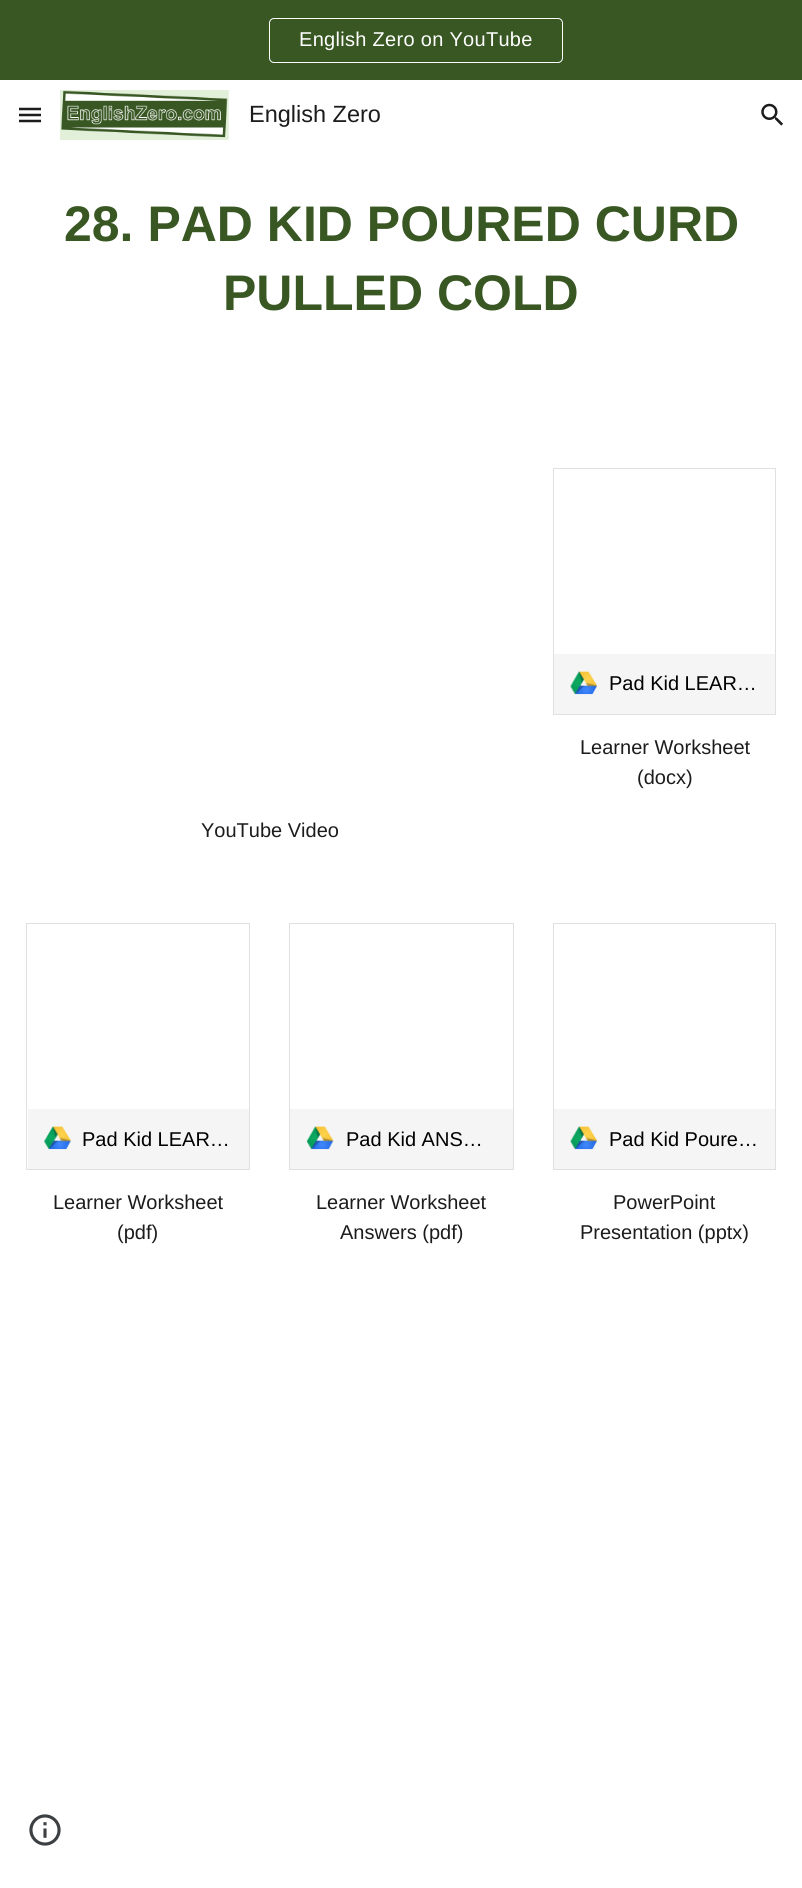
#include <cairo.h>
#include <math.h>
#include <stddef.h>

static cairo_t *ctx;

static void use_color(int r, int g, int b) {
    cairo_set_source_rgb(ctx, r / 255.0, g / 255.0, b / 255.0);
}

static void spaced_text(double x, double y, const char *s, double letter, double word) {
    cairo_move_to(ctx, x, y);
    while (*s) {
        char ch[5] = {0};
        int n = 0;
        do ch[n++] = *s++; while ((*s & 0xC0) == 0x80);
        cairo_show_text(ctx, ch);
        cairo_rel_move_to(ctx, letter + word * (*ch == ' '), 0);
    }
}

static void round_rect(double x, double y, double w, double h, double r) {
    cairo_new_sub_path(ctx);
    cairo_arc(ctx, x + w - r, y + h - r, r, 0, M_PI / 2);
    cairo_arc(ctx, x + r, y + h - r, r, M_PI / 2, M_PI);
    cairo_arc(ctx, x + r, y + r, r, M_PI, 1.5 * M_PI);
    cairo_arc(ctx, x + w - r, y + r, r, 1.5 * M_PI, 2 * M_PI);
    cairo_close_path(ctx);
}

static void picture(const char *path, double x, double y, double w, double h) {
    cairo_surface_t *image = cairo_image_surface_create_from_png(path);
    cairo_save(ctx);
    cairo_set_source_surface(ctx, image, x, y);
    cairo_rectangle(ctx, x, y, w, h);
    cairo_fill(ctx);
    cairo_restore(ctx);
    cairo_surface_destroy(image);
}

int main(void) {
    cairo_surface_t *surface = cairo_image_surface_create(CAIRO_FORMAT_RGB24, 802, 1888);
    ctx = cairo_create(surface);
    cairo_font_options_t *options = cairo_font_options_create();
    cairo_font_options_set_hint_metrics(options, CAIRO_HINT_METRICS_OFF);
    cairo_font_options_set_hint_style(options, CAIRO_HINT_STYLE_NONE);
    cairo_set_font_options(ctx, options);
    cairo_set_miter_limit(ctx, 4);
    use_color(255, 255, 255);
    cairo_paint(ctx);
    use_color(56, 87, 35);
    cairo_rectangle(ctx, 0, 0, 802, 80);
    cairo_fill(ctx);
    round_rect(269.5, 18.5, 293, 44, 4.5);
    use_color(255, 255, 255);
    cairo_set_line_width(ctx, 1);
    cairo_stroke(ctx);
    cairo_select_font_face(ctx, "Liberation Sans", CAIRO_FONT_SLANT_NORMAL, CAIRO_FONT_WEIGHT_NORMAL);
    cairo_set_font_size(ctx, 20);
    spaced_text(299, 46, "English Zero on YouTube", 0.3, 0);
    cairo_new_path(ctx);
    cairo_move_to(ctx, 19, 109);
    cairo_line_to(ctx, 41, 109);
    cairo_move_to(ctx, 19, 115);
    cairo_line_to(ctx, 41, 115);
    cairo_move_to(ctx, 19, 121);
    cairo_line_to(ctx, 41, 121);
    use_color(28, 28, 28);
    cairo_set_line_width(ctx, 2.5);
    cairo_stroke(ctx);
    picture("img1.png", 60, 90, 169, 50);
    cairo_set_font_size(ctx, 23.5);
    cairo_move_to(ctx, 249, 122);
    cairo_show_text(ctx, "English Zero");
    picture("img2.png", 761, 103, 22, 23);
    cairo_select_font_face(ctx, "Liberation Sans", CAIRO_FONT_SLANT_NORMAL, CAIRO_FONT_WEIGHT_BOLD);
    cairo_set_font_size(ctx, 50);
    use_color(56, 87, 35);
    cairo_move_to(ctx, 64, 241);
    cairo_show_text(ctx, "28. PAD KID POURED CURD");
    cairo_move_to(ctx, 223, 310);
    cairo_show_text(ctx, "PULLED COLD");
    cairo_rectangle(ctx, 553.5, 468.5, 222, 246);
    use_color(224, 224, 224);
    cairo_set_line_width(ctx, 1);
    cairo_stroke(ctx);
    use_color(245, 245, 245);
    cairo_rectangle(ctx, 554, 654, 221, 60);
    cairo_fill(ctx);
    picture("img3.png", 570, 671, 27, 24);
    cairo_select_font_face(ctx, "Liberation Sans", CAIRO_FONT_SLANT_NORMAL, CAIRO_FONT_WEIGHT_NORMAL);
    cairo_set_font_size(ctx, 20);
    use_color(0, 0, 0);
    cairo_move_to(ctx, 609, 690);
    cairo_show_text(ctx, "Pad Kid LEAR…");
    use_color(28, 28, 28);
    cairo_move_to(ctx, 580, 754);
    cairo_show_text(ctx, "Learner Worksheet");
    cairo_move_to(ctx, 637, 784);
    cairo_show_text(ctx, "(docx)");
    cairo_move_to(ctx, 201, 837);
    cairo_show_text(ctx, "YouTube Video");
    cairo_rectangle(ctx, 26.5, 923.5, 223, 246);
    use_color(224, 224, 224);
    cairo_stroke(ctx);
    use_color(245, 245, 245);
    cairo_rectangle(ctx, 28, 1109, 221, 60);
    cairo_fill(ctx);
    picture("img4.png", 44, 1126, 27, 24);
    use_color(0, 0, 0);
    cairo_move_to(ctx, 82, 1146);
    cairo_show_text(ctx, "Pad Kid LEAR…");
    use_color(28, 28, 28);
    cairo_move_to(ctx, 53, 1209);
    cairo_show_text(ctx, "Learner Worksheet");
    cairo_move_to(ctx, 117, 1239);
    cairo_show_text(ctx, "(pdf)");
    cairo_rectangle(ctx, 289.5, 923.5, 224, 246);
    use_color(224, 224, 224);
    cairo_stroke(ctx);
    use_color(245, 245, 245);
    cairo_rectangle(ctx, 290, 1109, 223, 60);
    cairo_fill(ctx);
    picture("img5.png", 306, 1126, 28, 24);
    use_color(0, 0, 0);
    cairo_move_to(ctx, 346, 1146);
    cairo_show_text(ctx, "Pad Kid ANS…");
    use_color(28, 28, 28);
    cairo_move_to(ctx, 316, 1209);
    cairo_show_text(ctx, "Learner Worksheet");
    cairo_move_to(ctx, 340, 1239);
    cairo_show_text(ctx, "Answers (pdf)");
    cairo_rectangle(ctx, 553.5, 923.5, 222, 246);
    use_color(224, 224, 224);
    cairo_stroke(ctx);
    use_color(245, 245, 245);
    cairo_rectangle(ctx, 554, 1109, 221, 60);
    cairo_fill(ctx);
    picture("img6.png", 570, 1126, 27, 24);
    use_color(0, 0, 0);
    cairo_move_to(ctx, 609, 1146);
    cairo_show_text(ctx, "Pad Kid Poure…");
    use_color(28, 28, 28);
    cairo_move_to(ctx, 613, 1209);
    cairo_show_text(ctx, "PowerPoint");
    cairo_move_to(ctx, 580, 1239);
    cairo_show_text(ctx, "Presentation (pptx)");
    picture("img7.png", 29, 1814, 32, 32);
    cairo_surface_write_to_png(surface, "result.png");
    cairo_font_options_destroy(options);
    cairo_destroy(ctx);
    cairo_surface_destroy(surface);
    return 0;
}
